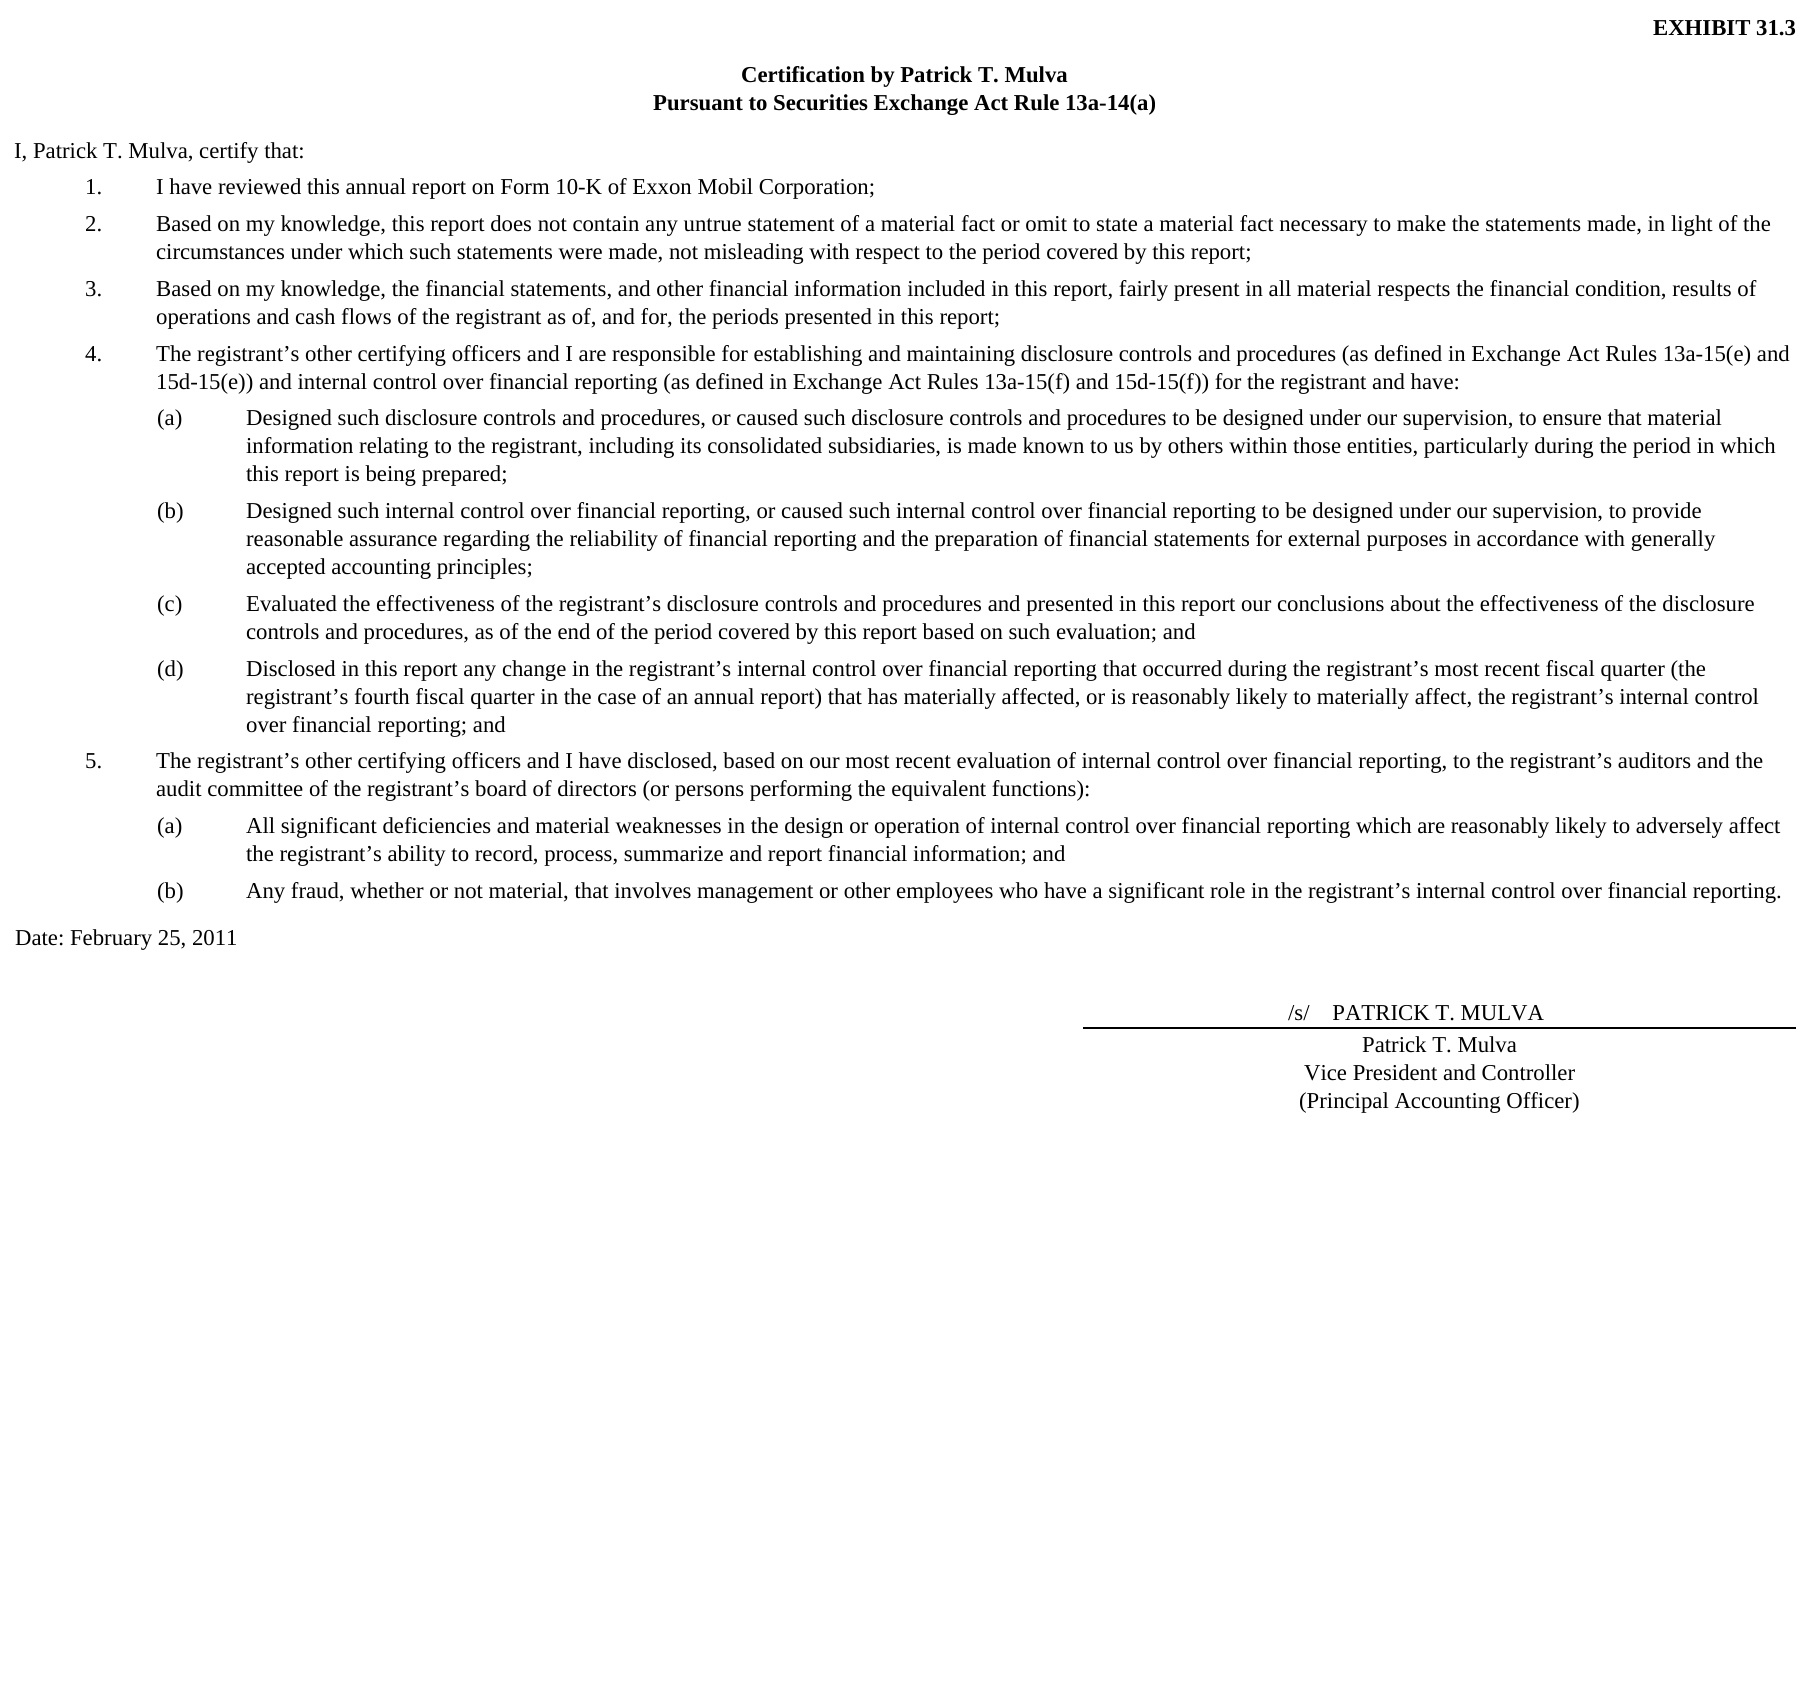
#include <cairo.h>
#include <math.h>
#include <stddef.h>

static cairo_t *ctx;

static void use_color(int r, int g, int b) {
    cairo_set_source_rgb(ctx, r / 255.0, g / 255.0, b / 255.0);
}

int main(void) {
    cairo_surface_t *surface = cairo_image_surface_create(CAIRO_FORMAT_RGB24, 1809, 1705);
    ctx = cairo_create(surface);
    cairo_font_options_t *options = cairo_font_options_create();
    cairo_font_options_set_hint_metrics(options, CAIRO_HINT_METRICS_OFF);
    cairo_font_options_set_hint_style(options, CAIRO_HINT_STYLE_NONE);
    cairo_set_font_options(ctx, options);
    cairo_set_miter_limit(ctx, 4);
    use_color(255, 255, 255);
    cairo_paint(ctx);
    cairo_select_font_face(ctx, "Liberation Serif", CAIRO_FONT_SLANT_NORMAL, CAIRO_FONT_WEIGHT_BOLD);
    cairo_set_font_size(ctx, 22.75);
    use_color(0, 0, 0);
    cairo_move_to(ctx, 1653, 35);
    cairo_show_text(ctx, "EXHIBIT 31.3");
    cairo_move_to(ctx, 741, 82);
    cairo_show_text(ctx, "Certification by Patrick T. Mulva");
    cairo_move_to(ctx, 653, 110);
    cairo_show_text(ctx, "Pursuant to Securities Exchange Act Rule 13a-14(a)");
    cairo_select_font_face(ctx, "Liberation Serif", CAIRO_FONT_SLANT_NORMAL, CAIRO_FONT_WEIGHT_NORMAL);
    cairo_move_to(ctx, 14, 158);
    cairo_show_text(ctx, "I, Patrick T. Mulva, certify that:");
    cairo_move_to(ctx, 85, 194);
    cairo_show_text(ctx, "1.");
    cairo_move_to(ctx, 156, 194);
    cairo_show_text(ctx, "I have reviewed this annual report on Form 10-K of Exxon Mobil Corporation;");
    cairo_move_to(ctx, 85, 231);
    cairo_show_text(ctx, "2.");
    cairo_move_to(ctx, 156, 231);
    cairo_show_text(ctx, "Based on my knowledge, this report does not contain any untrue statement of a material fact or omit to state a material fact necessary to make the statements made, in light of the");
    cairo_move_to(ctx, 156, 259);
    cairo_show_text(ctx, "circumstances under which such statements were made, not misleading with respect to the period covered by this report;");
    cairo_move_to(ctx, 85, 296);
    cairo_show_text(ctx, "3.");
    cairo_move_to(ctx, 156, 296);
    cairo_show_text(ctx, "Based on my knowledge, the financial statements, and other financial information included in this report, fairly present in all material respects the financial condition, results of");
    cairo_move_to(ctx, 156, 324);
    cairo_show_text(ctx, "operations and cash flows of the registrant as of, and for, the periods presented in this report;");
    cairo_move_to(ctx, 85, 361);
    cairo_show_text(ctx, "4.");
    cairo_move_to(ctx, 156, 361);
    cairo_show_text(ctx, "The registrant’s other certifying officers and I are responsible for establishing and maintaining disclosure controls and procedures (as defined in Exchange Act Rules 13a-15(e) and");
    cairo_move_to(ctx, 156, 389);
    cairo_show_text(ctx, "15d-15(e)) and internal control over financial reporting (as defined in Exchange Act Rules 13a-15(f) and 15d-15(f)) for the registrant and have:");
    cairo_move_to(ctx, 157, 425);
    cairo_show_text(ctx, "(a)");
    cairo_move_to(ctx, 246, 425);
    cairo_show_text(ctx, "Designed such disclosure controls and procedures, or caused such disclosure controls and procedures to be designed under our supervision, to ensure that material");
    cairo_move_to(ctx, 246, 453);
    cairo_show_text(ctx, "information relating to the registrant, including its consolidated subsidiaries, is made known to us by others within those entities, particularly during the period in which");
    cairo_move_to(ctx, 246, 481);
    cairo_show_text(ctx, "this report is being prepared;");
    cairo_move_to(ctx, 157, 518);
    cairo_show_text(ctx, "(b)");
    cairo_move_to(ctx, 246, 518);
    cairo_show_text(ctx, "Designed such internal control over financial reporting, or caused such internal control over financial reporting to be designed under our supervision, to provide");
    cairo_move_to(ctx, 246, 546);
    cairo_show_text(ctx, "reasonable assurance regarding the reliability of financial reporting and the preparation of financial statements for external purposes in accordance with generally");
    cairo_move_to(ctx, 246, 574);
    cairo_show_text(ctx, "accepted accounting principles;");
    cairo_move_to(ctx, 157, 611);
    cairo_show_text(ctx, "(c)");
    cairo_move_to(ctx, 246, 611);
    cairo_show_text(ctx, "Evaluated the effectiveness of the registrant’s disclosure controls and procedures and presented in this report our conclusions about the effectiveness of the disclosure");
    cairo_move_to(ctx, 246, 639);
    cairo_show_text(ctx, "controls and procedures, as of the end of the period covered by this report based on such evaluation; and");
    cairo_move_to(ctx, 157, 676);
    cairo_show_text(ctx, "(d)");
    cairo_move_to(ctx, 246, 676);
    cairo_show_text(ctx, "Disclosed in this report any change in the registrant’s internal control over financial reporting that occurred during the registrant’s most recent fiscal quarter (the");
    cairo_move_to(ctx, 246, 704);
    cairo_show_text(ctx, "registrant’s fourth fiscal quarter in the case of an annual report) that has materially affected, or is reasonably likely to materially affect, the registrant’s internal control");
    cairo_move_to(ctx, 246, 732);
    cairo_show_text(ctx, "over financial reporting; and");
    cairo_move_to(ctx, 85, 768);
    cairo_show_text(ctx, "5.");
    cairo_move_to(ctx, 156, 768);
    cairo_show_text(ctx, "The registrant’s other certifying officers and I have disclosed, based on our most recent evaluation of internal control over financial reporting, to the registrant’s auditors and the");
    cairo_move_to(ctx, 156, 796);
    cairo_show_text(ctx, "audit committee of the registrant’s board of directors (or persons performing the equivalent functions):");
    cairo_move_to(ctx, 157, 833);
    cairo_show_text(ctx, "(a)");
    cairo_move_to(ctx, 246, 833);
    cairo_show_text(ctx, "All significant deficiencies and material weaknesses in the design or operation of internal control over financial reporting which are reasonably likely to adversely affect");
    cairo_move_to(ctx, 246, 861);
    cairo_show_text(ctx, "the registrant’s ability to record, process, summarize and report financial information; and");
    cairo_move_to(ctx, 157, 898);
    cairo_show_text(ctx, "(b)");
    cairo_move_to(ctx, 246, 898);
    cairo_show_text(ctx, "Any fraud, whether or not material, that involves management or other employees who have a significant role in the registrant’s internal control over financial reporting.");
    cairo_move_to(ctx, 15, 945);
    cairo_show_text(ctx, "Date: February 25, 2011");
    cairo_rectangle(ctx, 1083, 1027, 713, 2);
    cairo_fill(ctx);
    cairo_move_to(ctx, 1288, 1020);
    cairo_show_text(ctx, "/s/    PATRICK T. MULVA");
    cairo_move_to(ctx, 1362, 1052);
    cairo_show_text(ctx, "Patrick T. Mulva");
    cairo_move_to(ctx, 1304, 1080);
    cairo_show_text(ctx, "Vice President and Controller");
    cairo_move_to(ctx, 1299, 1108);
    cairo_show_text(ctx, "(Principal Accounting Officer)");
    cairo_surface_write_to_png(surface, "result.png");
    cairo_font_options_destroy(options);
    cairo_destroy(ctx);
    cairo_surface_destroy(surface);
    return 0;
}
